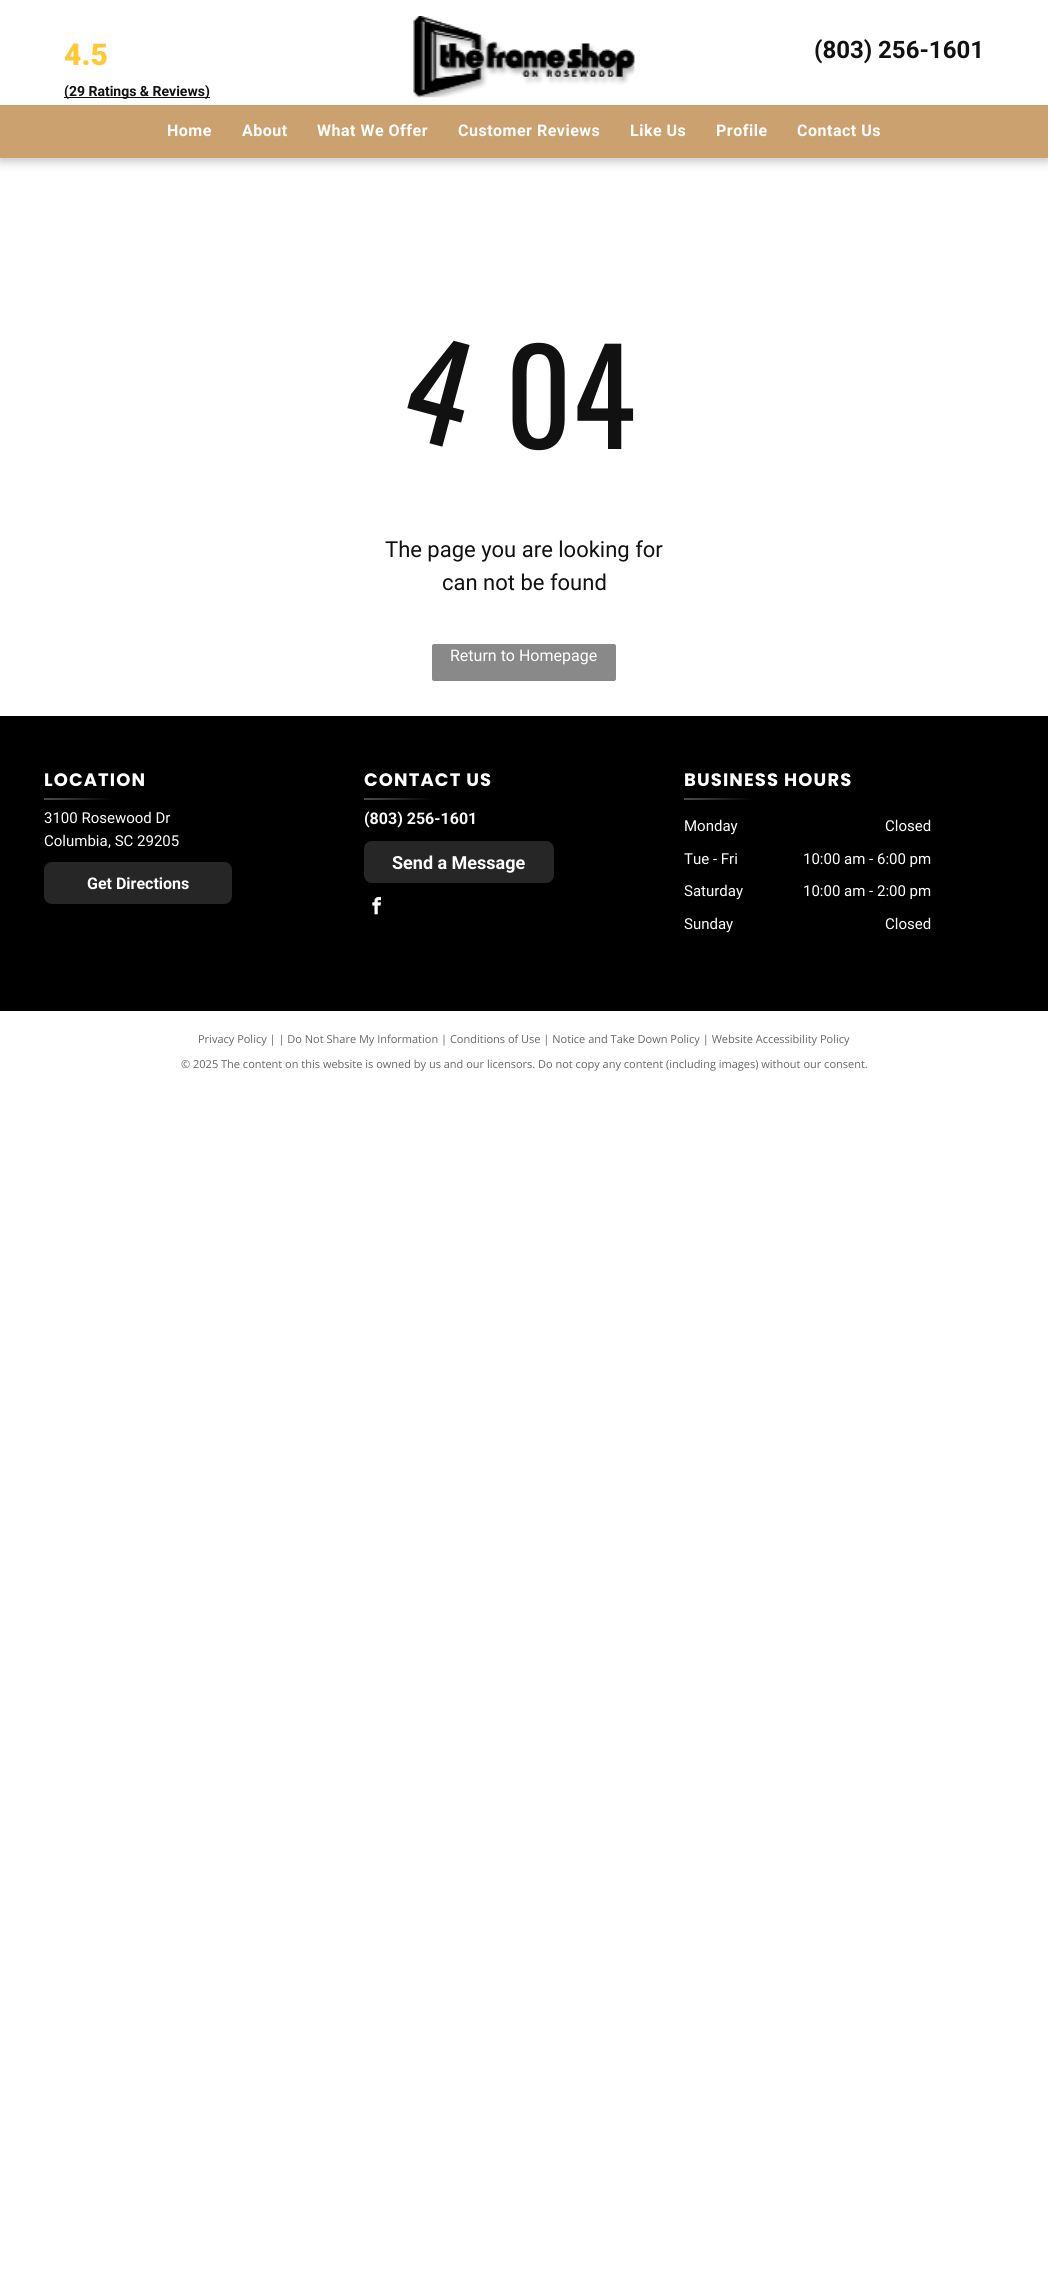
#include <cairo.h>
#include <math.h>
#include <stddef.h>

static cairo_t *ctx;

static void use_color(int r, int g, int b) {
    cairo_set_source_rgb(ctx, r / 255.0, g / 255.0, b / 255.0);
}

static void spaced_text(double x, double y, const char *s, double letter, double word) {
    cairo_move_to(ctx, x, y);
    while (*s) {
        char ch[5] = {0};
        int n = 0;
        do ch[n++] = *s++; while ((*s & 0xC0) == 0x80);
        cairo_show_text(ctx, ch);
        cairo_rel_move_to(ctx, letter + word * (*ch == ' '), 0);
    }
}

static void round_rect(double x, double y, double w, double h, double r) {
    cairo_new_sub_path(ctx);
    cairo_arc(ctx, x + w - r, y + h - r, r, 0, M_PI / 2);
    cairo_arc(ctx, x + r, y + h - r, r, M_PI / 2, M_PI);
    cairo_arc(ctx, x + r, y + r, r, M_PI, 1.5 * M_PI);
    cairo_arc(ctx, x + w - r, y + r, r, 1.5 * M_PI, 2 * M_PI);
    cairo_close_path(ctx);
}

static void shadow(double x, double y, double w, double h, double r, double blur, double alpha) {
    cairo_push_group_with_content(ctx, CAIRO_CONTENT_ALPHA);
    cairo_set_operator(ctx, CAIRO_OPERATOR_SOURCE);
    for (int i = 15; i >= -15 && fmin(w, h) + blur * i / 3 > 0; i -= 2) {
        double e = blur * i / 6;
        cairo_set_source_rgba(ctx, 0, 0, 0, alpha * erfc((i - 1) / 8.5) / 2);
        round_rect(x - e, y - e, w + 2 * e, h + 2 * e, fmax(0, fmin(r + e + blur * .6, fmin(w, h) / 2 + e)));
        cairo_fill(ctx);
    }
    cairo_pattern_t *soft = cairo_pop_group(ctx);
    cairo_mask(ctx, soft);
    cairo_pattern_destroy(soft);
}

static void picture(const char *path, double x, double y, double w, double h) {
    cairo_surface_t *image = cairo_image_surface_create_from_png(path);
    cairo_save(ctx);
    cairo_set_source_surface(ctx, image, x, y);
    cairo_rectangle(ctx, x, y, w, h);
    cairo_fill(ctx);
    cairo_restore(ctx);
    cairo_surface_destroy(image);
}

int main(void) {
    cairo_surface_t *surface = cairo_image_surface_create(CAIRO_FORMAT_RGB24, 1048, 2294);
    ctx = cairo_create(surface);
    cairo_font_options_t *options = cairo_font_options_create();
    cairo_font_options_set_hint_metrics(options, CAIRO_HINT_METRICS_OFF);
    cairo_font_options_set_hint_style(options, CAIRO_HINT_STYLE_NONE);
    cairo_set_font_options(ctx, options);
    cairo_set_miter_limit(ctx, 4);
    cairo_pattern_t *gradient;
    use_color(255, 255, 255);
    cairo_paint(ctx);
    use_color(0, 0, 0);
    shadow(0, 3, 1048, 158, 0, 5.5, 0.25);
    use_color(255, 255, 255);
    cairo_rectangle(ctx, 0, 0, 1048, 105);
    cairo_fill(ctx);
    cairo_select_font_face(ctx, "Roboto Black", CAIRO_FONT_SLANT_NORMAL, CAIRO_FONT_WEIGHT_NORMAL);
    cairo_set_font_size(ctx, 30);
    use_color(255, 200, 52);
    cairo_move_to(ctx, 64, 65);
    cairo_show_text(ctx, "4.5");
    use_color(17, 17, 17);
    cairo_rectangle(ctx, 64, 97, 146, 1);
    cairo_fill(ctx);
    cairo_select_font_face(ctx, "Roboto", CAIRO_FONT_SLANT_NORMAL, CAIRO_FONT_WEIGHT_BOLD);
    cairo_set_font_size(ctx, 14);
    cairo_move_to(ctx, 64, 96);
    cairo_show_text(ctx, "(29 Ratings & Reviews)");
    picture("img1.png", 413, 16, 222, 82);
    cairo_set_font_size(ctx, 24);
    cairo_move_to(ctx, 814, 58);
    cairo_show_text(ctx, "(803) 256-1601");
    use_color(204, 161, 112);
    cairo_rectangle(ctx, 0, 105, 1048, 53);
    cairo_fill(ctx);
    cairo_set_font_size(ctx, 16);
    use_color(255, 255, 255);
    spaced_text(167, 136, "Home", 0.5, 0);
    spaced_text(242, 136, "About", 0.5, 0);
    spaced_text(317, 136, "What We Offer", 0.5, 0);
    spaced_text(458, 136, "Customer Reviews", 0.5, 0);
    spaced_text(630, 136, "Like Us", 0.5, 0);
    spaced_text(716, 136, "Profile", 0.5, 0);
    spaced_text(797, 136, "Contact Us", 0.5, 0);
    cairo_select_font_face(ctx, "Oswald", CAIRO_FONT_SLANT_NORMAL, CAIRO_FONT_WEIGHT_NORMAL);
    cairo_set_font_size(ctx, 130);
    use_color(17, 17, 17);
    cairo_save(ctx);
    cairo_translate(ctx, 395, 434);
    cairo_rotate(ctx, 15 * M_PI / 180);
    cairo_move_to(ctx, 0, 0);
    cairo_show_text(ctx, "4");
    cairo_restore(ctx);
    cairo_move_to(ctx, 505, 449);
    cairo_show_text(ctx, "04");
    cairo_select_font_face(ctx, "Roboto", CAIRO_FONT_SLANT_NORMAL, CAIRO_FONT_WEIGHT_NORMAL);
    cairo_set_font_size(ctx, 22);
    cairo_move_to(ctx, 385, 557);
    cairo_show_text(ctx, "The page you are looking for");
    cairo_move_to(ctx, 442, 590);
    cairo_show_text(ctx, "can not be found");
    use_color(137, 137, 137);
    round_rect(432, 644, 184, 37, 2);
    cairo_fill(ctx);
    cairo_set_font_size(ctx, 16);
    use_color(255, 255, 255);
    cairo_move_to(ctx, 450, 661);
    cairo_show_text(ctx, "Return to Homepage");
    use_color(0, 0, 0);
    cairo_rectangle(ctx, 0, 716, 1048, 295);
    cairo_fill(ctx);
    cairo_select_font_face(ctx, "Poppins", CAIRO_FONT_SLANT_NORMAL, CAIRO_FONT_WEIGHT_BOLD);
    cairo_set_font_size(ctx, 18);
    use_color(255, 255, 255);
    spaced_text(44, 786, "LOCATION", 1.1, 0);
    gradient = cairo_pattern_create_linear(44, 799, 114, 799);
    cairo_pattern_add_color_stop_rgba(gradient, 0, 0.302, 0.302, 0.302, 1);
    cairo_pattern_add_color_stop_rgba(gradient, 1, 0, 0, 0, 1);
    cairo_set_source(ctx, gradient);
    cairo_pattern_destroy(gradient);
    cairo_rectangle(ctx, 44, 798, 70, 2);
    cairo_fill(ctx);
    cairo_select_font_face(ctx, "Roboto", CAIRO_FONT_SLANT_NORMAL, CAIRO_FONT_WEIGHT_NORMAL);
    cairo_set_font_size(ctx, 15);
    use_color(255, 255, 255);
    cairo_move_to(ctx, 44, 823);
    cairo_show_text(ctx, "3100 Rosewood Dr");
    cairo_move_to(ctx, 44, 846);
    cairo_show_text(ctx, "Columbia");
    cairo_move_to(ctx, 108, 846);
    cairo_show_text(ctx, ", SC 29205");
    use_color(38, 38, 38);
    round_rect(44, 862, 188, 42, 8);
    cairo_fill(ctx);
    cairo_select_font_face(ctx, "Roboto", CAIRO_FONT_SLANT_NORMAL, CAIRO_FONT_WEIGHT_BOLD);
    cairo_set_font_size(ctx, 16);
    use_color(255, 255, 255);
    cairo_move_to(ctx, 87, 889);
    cairo_show_text(ctx, "Get Directions");
    cairo_select_font_face(ctx, "Poppins", CAIRO_FONT_SLANT_NORMAL, CAIRO_FONT_WEIGHT_BOLD);
    cairo_set_font_size(ctx, 18);
    spaced_text(364, 786, "CONTACT US", 1.1, 0);
    gradient = cairo_pattern_create_linear(364, 799, 434, 799);
    cairo_pattern_add_color_stop_rgba(gradient, 0, 0.302, 0.302, 0.302, 1);
    cairo_pattern_add_color_stop_rgba(gradient, 1, 0, 0, 0, 1);
    cairo_set_source(ctx, gradient);
    cairo_pattern_destroy(gradient);
    cairo_rectangle(ctx, 364, 798, 70, 2);
    cairo_fill(ctx);
    cairo_select_font_face(ctx, "Roboto", CAIRO_FONT_SLANT_NORMAL, CAIRO_FONT_WEIGHT_BOLD);
    cairo_set_font_size(ctx, 16);
    use_color(248, 246, 246);
    cairo_move_to(ctx, 364, 824);
    cairo_show_text(ctx, "(803) 256-1601");
    use_color(38, 38, 38);
    round_rect(364, 841, 190, 42, 8);
    cairo_fill(ctx);
    cairo_set_font_size(ctx, 18);
    use_color(255, 255, 255);
    cairo_move_to(ctx, 392, 869);
    cairo_show_text(ctx, "Send a Message");
    picture("img2.png", 372, 896, 9, 19);
    cairo_select_font_face(ctx, "Poppins", CAIRO_FONT_SLANT_NORMAL, CAIRO_FONT_WEIGHT_BOLD);
    spaced_text(684, 786, "BUSINESS HOURS", 1.1, 0);
    gradient = cairo_pattern_create_linear(684, 799, 754, 799);
    cairo_pattern_add_color_stop_rgba(gradient, 0, 0.302, 0.302, 0.302, 1);
    cairo_pattern_add_color_stop_rgba(gradient, 1, 0, 0, 0, 1);
    cairo_set_source(ctx, gradient);
    cairo_pattern_destroy(gradient);
    cairo_rectangle(ctx, 684, 798, 70, 2);
    cairo_fill(ctx);
    cairo_select_font_face(ctx, "Roboto", CAIRO_FONT_SLANT_NORMAL, CAIRO_FONT_WEIGHT_NORMAL);
    cairo_set_font_size(ctx, 15);
    use_color(255, 255, 255);
    cairo_move_to(ctx, 684, 831);
    cairo_show_text(ctx, "Monday");
    cairo_move_to(ctx, 885, 831);
    cairo_show_text(ctx, "Closed");
    cairo_move_to(ctx, 684, 864);
    cairo_show_text(ctx, "Tue - Fri");
    cairo_move_to(ctx, 803, 864);
    cairo_show_text(ctx, "10:00 am - 6:00 pm");
    cairo_move_to(ctx, 684, 896);
    cairo_show_text(ctx, "Saturday");
    cairo_move_to(ctx, 803, 896);
    cairo_show_text(ctx, "10:00 am - 2:00 pm");
    cairo_move_to(ctx, 684, 929);
    cairo_show_text(ctx, "Sunday");
    cairo_move_to(ctx, 885, 929);
    cairo_show_text(ctx, "Closed");
    cairo_select_font_face(ctx, "Open Sans", CAIRO_FONT_SLANT_NORMAL, CAIRO_FONT_WEIGHT_NORMAL);
    cairo_set_font_size(ctx, 11);
    use_color(102, 102, 102);
    cairo_move_to(ctx, 198, 1043);
    cairo_show_text(ctx, "Privacy Policy | | Do Not Share My Information | Conditions of Use | Notice and Take Down Policy | Website Accessibility Policy");
    cairo_move_to(ctx, 181, 1068);
    cairo_show_text(ctx, "© 2025 The content on this website is owned by us and our licensors. Do not copy any content (including images) without our consent.");
    cairo_surface_write_to_png(surface, "result.png");
    cairo_font_options_destroy(options);
    cairo_destroy(ctx);
    cairo_surface_destroy(surface);
    return 0;
}
